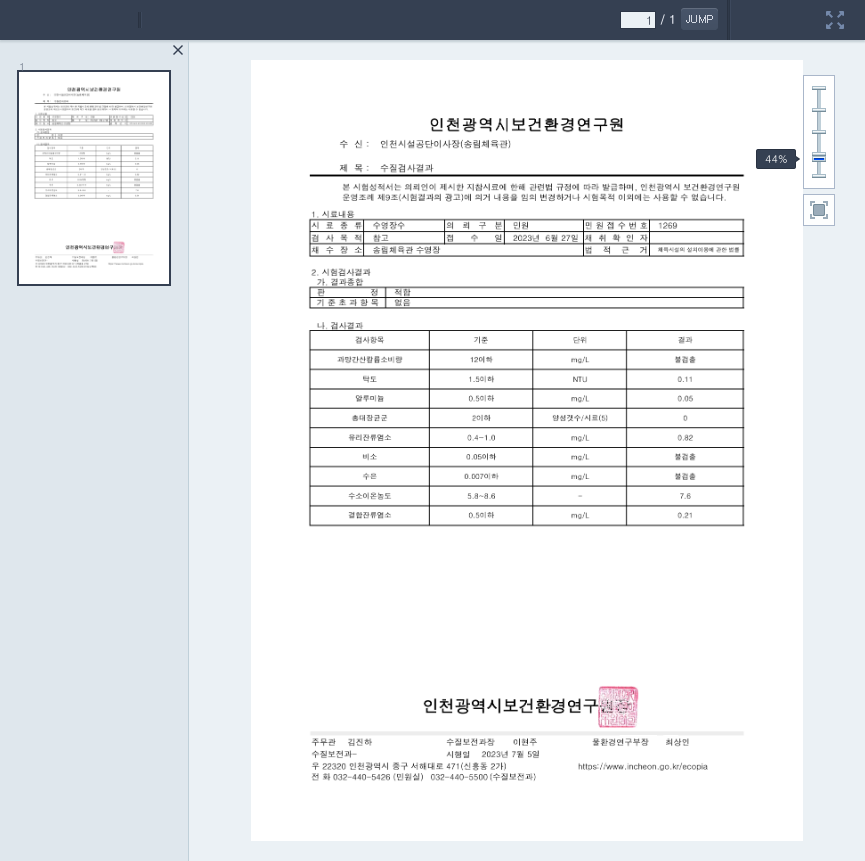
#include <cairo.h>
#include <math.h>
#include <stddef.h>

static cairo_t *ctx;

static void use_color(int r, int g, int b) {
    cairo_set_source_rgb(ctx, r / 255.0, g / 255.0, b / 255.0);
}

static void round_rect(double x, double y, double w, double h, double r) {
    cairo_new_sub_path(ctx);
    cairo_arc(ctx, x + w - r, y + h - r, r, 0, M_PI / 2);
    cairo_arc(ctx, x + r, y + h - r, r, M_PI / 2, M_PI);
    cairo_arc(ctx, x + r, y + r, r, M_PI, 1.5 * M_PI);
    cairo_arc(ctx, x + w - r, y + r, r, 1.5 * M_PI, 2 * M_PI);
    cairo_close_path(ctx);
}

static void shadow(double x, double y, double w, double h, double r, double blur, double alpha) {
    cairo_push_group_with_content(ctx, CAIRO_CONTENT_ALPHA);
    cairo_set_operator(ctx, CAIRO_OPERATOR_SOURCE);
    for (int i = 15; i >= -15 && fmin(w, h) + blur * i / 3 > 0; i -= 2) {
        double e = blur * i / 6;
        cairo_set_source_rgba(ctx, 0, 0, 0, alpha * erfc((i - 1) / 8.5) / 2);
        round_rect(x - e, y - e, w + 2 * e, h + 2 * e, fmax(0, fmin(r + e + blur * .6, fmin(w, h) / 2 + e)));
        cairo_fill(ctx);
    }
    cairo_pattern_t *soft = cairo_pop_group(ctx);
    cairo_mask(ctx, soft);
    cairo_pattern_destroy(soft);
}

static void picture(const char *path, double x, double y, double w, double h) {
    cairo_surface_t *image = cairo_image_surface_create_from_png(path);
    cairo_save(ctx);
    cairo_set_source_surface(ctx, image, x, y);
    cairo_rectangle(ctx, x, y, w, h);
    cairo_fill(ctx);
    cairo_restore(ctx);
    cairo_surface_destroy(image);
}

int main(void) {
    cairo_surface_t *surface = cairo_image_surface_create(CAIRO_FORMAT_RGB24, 865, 861);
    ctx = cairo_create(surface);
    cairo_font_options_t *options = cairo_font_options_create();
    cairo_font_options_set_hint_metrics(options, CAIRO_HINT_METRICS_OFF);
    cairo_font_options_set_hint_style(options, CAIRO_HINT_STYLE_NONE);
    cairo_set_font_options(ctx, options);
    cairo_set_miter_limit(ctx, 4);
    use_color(235, 241, 245);
    cairo_paint(ctx);
    use_color(223, 231, 237);
    cairo_rectangle(ctx, 0, 40, 188, 821);
    cairo_fill(ctx);
    use_color(192, 208, 217);
    cairo_rectangle(ctx, 188, 40, 1, 821);
    cairo_fill(ctx);
    picture("img5.png", 173, 45, 10, 10);
    use_color(195, 205, 211);
    shadow(0, 2, 865, 40, 0, 1, 1);
    use_color(53, 64, 82);
    cairo_rectangle(ctx, 0, 0, 865, 40);
    cairo_fill(ctx);
    picture("img1.png", 138, 12, 4, 16);
    use_color(235, 241, 245);
    cairo_rectangle(ctx, 620.5, 11.5, 35, 17);
    cairo_fill_preserve(ctx);
    use_color(44, 54, 70);
    cairo_set_line_width(ctx, 1);
    cairo_stroke(ctx);
    cairo_select_font_face(ctx, "Dotum", CAIRO_FONT_SLANT_NORMAL, CAIRO_FONT_WEIGHT_NORMAL);
    cairo_set_font_size(ctx, 12);
    cairo_move_to(ctx, 646, 25);
    cairo_show_text(ctx, "1");
    cairo_select_font_face(ctx, "Dotum", CAIRO_FONT_SLANT_NORMAL, CAIRO_FONT_WEIGHT_BOLD);
    use_color(232, 235, 243);
    cairo_move_to(ctx, 660, 24);
    cairo_show_text(ctx, "/ 1");
    picture("img2.png", 681, 8, 37, 22);
    picture("img3.png", 727, 0, 4, 40);
    picture("img4.png", 826, 11, 18, 18);
    use_color(255, 255, 255);
    cairo_rectangle(ctx, 18, 71, 152, 214);
    cairo_fill_preserve(ctx);
    use_color(53, 64, 82);
    cairo_set_line_width(ctx, 2);
    cairo_stroke(ctx);
    cairo_select_font_face(ctx, "Dotum", CAIRO_FONT_SLANT_NORMAL, CAIRO_FONT_WEIGHT_NORMAL);
    cairo_set_font_size(ctx, 11);
    use_color(111, 122, 139);
    cairo_move_to(ctx, 19, 71);
    cairo_show_text(ctx, "1");
    picture("img6.png", 34, 87, 120, 181);
    picture("img7.png", 251, 60, 552, 781);
    picture("img8.png", 803, 75, 32, 114);
    picture("img9.png", 812, 86, 14, 4);
    picture("img9.png", 812, 108, 14, 4);
    picture("img9.png", 812, 130, 14, 4);
    picture("img9.png", 812, 152, 14, 4);
    picture("img10.png", 756, 149, 44, 20);
    use_color(255, 255, 255);
    cairo_move_to(ctx, 765, 163);
    cairo_show_text(ctx, "44%");
    picture("img11.png", 812, 156, 14, 6);
    picture("img9.png", 812, 174, 14, 4);
    picture("img12.png", 803, 194, 32, 32);
    cairo_surface_write_to_png(surface, "result.png");
    cairo_font_options_destroy(options);
    cairo_destroy(ctx);
    cairo_surface_destroy(surface);
    return 0;
}
